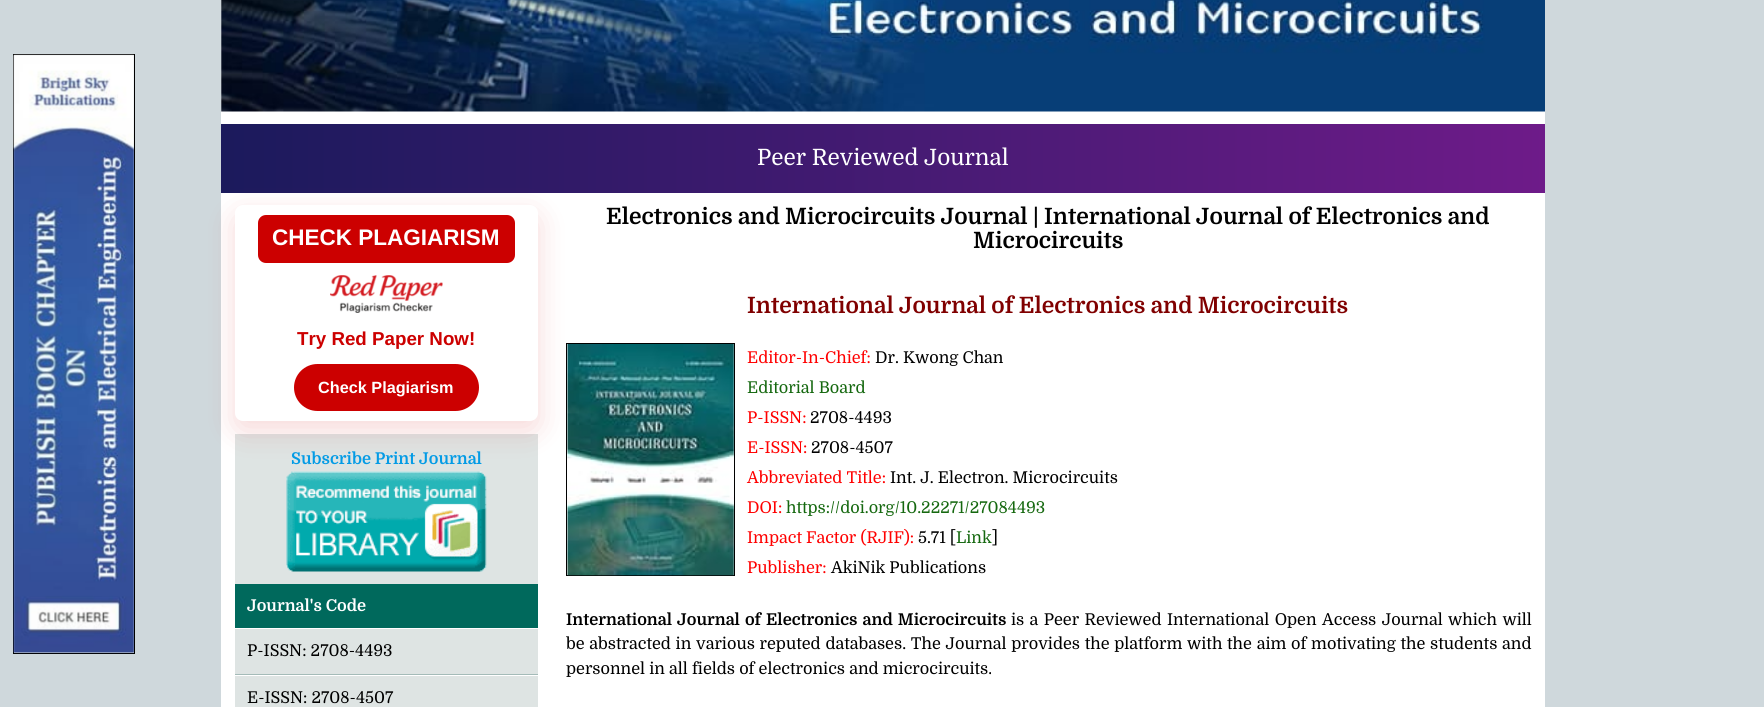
#include <cairo.h>
#include <math.h>
#include <stddef.h>

static cairo_t *ctx;

static void use_color(int r, int g, int b) {
    cairo_set_source_rgb(ctx, r / 255.0, g / 255.0, b / 255.0);
}

static void spaced_text(double x, double y, const char *s, double letter, double word) {
    cairo_move_to(ctx, x, y);
    while (*s) {
        char ch[5] = {0};
        int n = 0;
        do ch[n++] = *s++; while ((*s & 0xC0) == 0x80);
        cairo_show_text(ctx, ch);
        cairo_rel_move_to(ctx, letter + word * (*ch == ' '), 0);
    }
}

static void round_rect(double x, double y, double w, double h, double r) {
    cairo_new_sub_path(ctx);
    cairo_arc(ctx, x + w - r, y + h - r, r, 0, M_PI / 2);
    cairo_arc(ctx, x + r, y + h - r, r, M_PI / 2, M_PI);
    cairo_arc(ctx, x + r, y + r, r, M_PI, 1.5 * M_PI);
    cairo_arc(ctx, x + w - r, y + r, r, 1.5 * M_PI, 2 * M_PI);
    cairo_close_path(ctx);
}

static void shadow(double x, double y, double w, double h, double r, double blur, double alpha) {
    cairo_push_group_with_content(ctx, CAIRO_CONTENT_ALPHA);
    cairo_set_operator(ctx, CAIRO_OPERATOR_SOURCE);
    for (int i = 15; i >= -15 && fmin(w, h) + blur * i / 3 > 0; i -= 2) {
        double e = blur * i / 6;
        cairo_set_source_rgba(ctx, 0, 0, 0, alpha * erfc((i - 1) / 8.5) / 2);
        round_rect(x - e, y - e, w + 2 * e, h + 2 * e, fmax(0, fmin(r + e + blur * .6, fmin(w, h) / 2 + e)));
        cairo_fill(ctx);
    }
    cairo_pattern_t *soft = cairo_pop_group(ctx);
    cairo_mask(ctx, soft);
    cairo_pattern_destroy(soft);
}

static void picture(const char *path, double x, double y, double w, double h) {
    cairo_surface_t *image = cairo_image_surface_create_from_png(path);
    cairo_save(ctx);
    cairo_set_source_surface(ctx, image, x, y);
    cairo_rectangle(ctx, x, y, w, h);
    cairo_fill(ctx);
    cairo_restore(ctx);
    cairo_surface_destroy(image);
}

int main(void) {
    cairo_surface_t *surface = cairo_image_surface_create(CAIRO_FORMAT_RGB24, 1764, 707);
    ctx = cairo_create(surface);
    cairo_font_options_t *options = cairo_font_options_create();
    cairo_font_options_set_hint_metrics(options, CAIRO_HINT_METRICS_OFF);
    cairo_font_options_set_hint_style(options, CAIRO_HINT_STYLE_NONE);
    cairo_set_font_options(ctx, options);
    cairo_set_miter_limit(ctx, 4);
    cairo_pattern_t *gradient;
    use_color(207, 216, 220);
    cairo_paint(ctx);
    cairo_rectangle(ctx, 13.5, 54.5, 121, 599);
    use_color(0, 0, 0);
    cairo_set_line_width(ctx, 1);
    cairo_stroke(ctx);
    picture("img1.png", 13, 54, 121, 600);
    use_color(255, 255, 255);
    cairo_rectangle(ctx, 221, 0, 1324, 707);
    cairo_fill(ctx);
    picture("img2.png", 221, 0, 1324, 112);
    gradient = cairo_pattern_create_linear(221, 158, 1545, 158);
    cairo_pattern_add_color_stop_rgba(gradient, 0, 0.106, 0.102, 0.361, 1);
    cairo_pattern_add_color_stop_rgba(gradient, 1, 0.431, 0.106, 0.537, 1);
    cairo_set_source(ctx, gradient);
    cairo_pattern_destroy(gradient);
    cairo_rectangle(ctx, 221, 124, 1324, 69);
    cairo_fill(ctx);
    cairo_select_font_face(ctx, "Domine", CAIRO_FONT_SLANT_NORMAL, CAIRO_FONT_WEIGHT_NORMAL);
    cairo_set_font_size(ctx, 22.5);
    use_color(255, 255, 255);
    cairo_move_to(ctx, 757, 165);
    cairo_show_text(ctx, "Peer Reviewed Journal");
    use_color(222, 228, 227);
    cairo_rectangle(ctx, 235, 434, 303, 150);
    cairo_fill(ctx);
    picture("img4.png", 286, 471, 201, 101);
    cairo_rectangle(ctx, 566.5, 343.5, 168, 232);
    use_color(0, 0, 0);
    cairo_stroke(ctx);
    picture("img5.png", 567, 344, 167, 232);
    use_color(204, 0, 0);
    shadow(235, 215, 303, 216, 8, 15, 0.15);
    use_color(255, 255, 255);
    round_rect(235, 205, 303, 216, 8);
    cairo_fill(ctx);
    use_color(204, 0, 0);
    round_rect(258, 215, 257, 48, 8);
    cairo_fill(ctx);
    cairo_select_font_face(ctx, "Liberation Sans", CAIRO_FONT_SLANT_NORMAL, CAIRO_FONT_WEIGHT_BOLD);
    use_color(255, 255, 255);
    cairo_move_to(ctx, 272, 245);
    cairo_show_text(ctx, "CHECK PLAGIARISM");
    picture("img3.png", 330, 275, 113, 38);
    cairo_set_font_size(ctx, 18.75);
    use_color(204, 0, 0);
    cairo_move_to(ctx, 297, 345);
    cairo_show_text(ctx, "Try Red Paper Now!");
    round_rect(294, 364, 185, 47, 23.5);
    cairo_fill(ctx);
    cairo_set_font_size(ctx, 16.25);
    use_color(255, 255, 255);
    cairo_move_to(ctx, 318, 393);
    cairo_show_text(ctx, "Check Plagiarism");
    cairo_select_font_face(ctx, "Domine", CAIRO_FONT_SLANT_NORMAL, CAIRO_FONT_WEIGHT_BOLD);
    use_color(3, 155, 229);
    cairo_move_to(ctx, 291, 464);
    cairo_show_text(ctx, "Subscribe Print Journal");
    use_color(0, 105, 92);
    cairo_rectangle(ctx, 235, 584, 303, 44);
    cairo_fill(ctx);
    use_color(255, 255, 255);
    cairo_move_to(ctx, 247, 611);
    cairo_show_text(ctx, "Journal's Code");
    use_color(222, 228, 227);
    cairo_rectangle(ctx, 235, 629, 303, 78);
    cairo_fill(ctx);
    use_color(164, 187, 184);
    cairo_rectangle(ctx, 235, 674, 303, 1);
    cairo_fill(ctx);
    cairo_select_font_face(ctx, "Domine", CAIRO_FONT_SLANT_NORMAL, CAIRO_FONT_WEIGHT_NORMAL);
    use_color(0, 0, 0);
    cairo_move_to(ctx, 247, 656);
    cairo_show_text(ctx, "P-ISSN: 2708-4493");
    use_color(255, 255, 255);
    cairo_rectangle(ctx, 235, 675, 303, 1);
    cairo_fill(ctx);
    use_color(0, 0, 0);
    cairo_move_to(ctx, 247, 703);
    cairo_show_text(ctx, "E-ISSN: 2708-4507");
    cairo_select_font_face(ctx, "Domine", CAIRO_FONT_SLANT_NORMAL, CAIRO_FONT_WEIGHT_BOLD);
    cairo_set_font_size(ctx, 22.5);
    cairo_move_to(ctx, 606, 224);
    cairo_show_text(ctx, "Electronics and Microcircuits Journal | International Journal of Electronics and");
    cairo_move_to(ctx, 973, 248);
    cairo_show_text(ctx, "Microcircuits");
    use_color(128, 0, 0);
    cairo_move_to(ctx, 747, 313);
    cairo_show_text(ctx, "International Journal of Electronics and Microcircuits");
    cairo_select_font_face(ctx, "Domine", CAIRO_FONT_SLANT_NORMAL, CAIRO_FONT_WEIGHT_NORMAL);
    cairo_set_font_size(ctx, 16.25);
    use_color(255, 0, 0);
    cairo_move_to(ctx, 747, 363);
    cairo_show_text(ctx, "Editor-In-Chief:");
    use_color(0, 0, 0);
    cairo_move_to(ctx, 875, 363);
    cairo_show_text(ctx, "Dr. Kwong Chan");
    use_color(21, 104, 15);
    cairo_move_to(ctx, 747, 393);
    cairo_show_text(ctx, "Editorial Board");
    use_color(255, 0, 0);
    cairo_move_to(ctx, 747, 423);
    cairo_show_text(ctx, "P-ISSN:");
    use_color(0, 0, 0);
    cairo_move_to(ctx, 810, 423);
    cairo_show_text(ctx, "2708-4493");
    use_color(255, 0, 0);
    cairo_move_to(ctx, 747, 453);
    cairo_show_text(ctx, "E-ISSN:");
    use_color(0, 0, 0);
    cairo_move_to(ctx, 811, 453);
    cairo_show_text(ctx, "2708-4507");
    use_color(255, 0, 0);
    cairo_move_to(ctx, 747, 483);
    cairo_show_text(ctx, "Abbreviated Title:");
    use_color(0, 0, 0);
    cairo_move_to(ctx, 890, 483);
    cairo_show_text(ctx, "Int. J. Electron. Microcircuits");
    use_color(255, 0, 0);
    cairo_move_to(ctx, 747, 513);
    cairo_show_text(ctx, "DOI:");
    use_color(21, 104, 15);
    cairo_move_to(ctx, 786, 513);
    cairo_show_text(ctx, "https://doi.org/10.22271/27084493");
    use_color(255, 0, 0);
    cairo_move_to(ctx, 747, 543);
    cairo_show_text(ctx, "Impact Factor (RJIF):");
    use_color(0, 0, 0);
    cairo_move_to(ctx, 918, 543);
    cairo_show_text(ctx, "5.71 [");
    use_color(21, 104, 15);
    cairo_move_to(ctx, 956, 543);
    cairo_show_text(ctx, "Link");
    use_color(0, 0, 0);
    cairo_move_to(ctx, 992, 543);
    cairo_show_text(ctx, "]");
    use_color(255, 0, 0);
    cairo_move_to(ctx, 747, 573);
    cairo_show_text(ctx, "Publisher:");
    use_color(0, 0, 0);
    cairo_move_to(ctx, 831, 573);
    cairo_show_text(ctx, "AkiNik Publications");
    cairo_select_font_face(ctx, "Domine", CAIRO_FONT_SLANT_NORMAL, CAIRO_FONT_WEIGHT_BOLD);
    spaced_text(566, 625, "International Journal of Electronics and Microcircuits", 0, 1.25);
    cairo_select_font_face(ctx, "Domine", CAIRO_FONT_SLANT_NORMAL, CAIRO_FONT_WEIGHT_NORMAL);
    spaced_text(1011, 625, "is a Peer Reviewed International Open Access Journal which will", 0, 1.25);
    spaced_text(566, 649, "be abstracted in various reputed databases. The Journal provides the platform with the aim of motivating the students and", 0, 0.6);
    cairo_move_to(ctx, 566, 674);
    cairo_show_text(ctx, "personnel in all fields of electronics and microcircuits.");
    cairo_surface_write_to_png(surface, "result.png");
    cairo_font_options_destroy(options);
    cairo_destroy(ctx);
    cairo_surface_destroy(surface);
    return 0;
}
